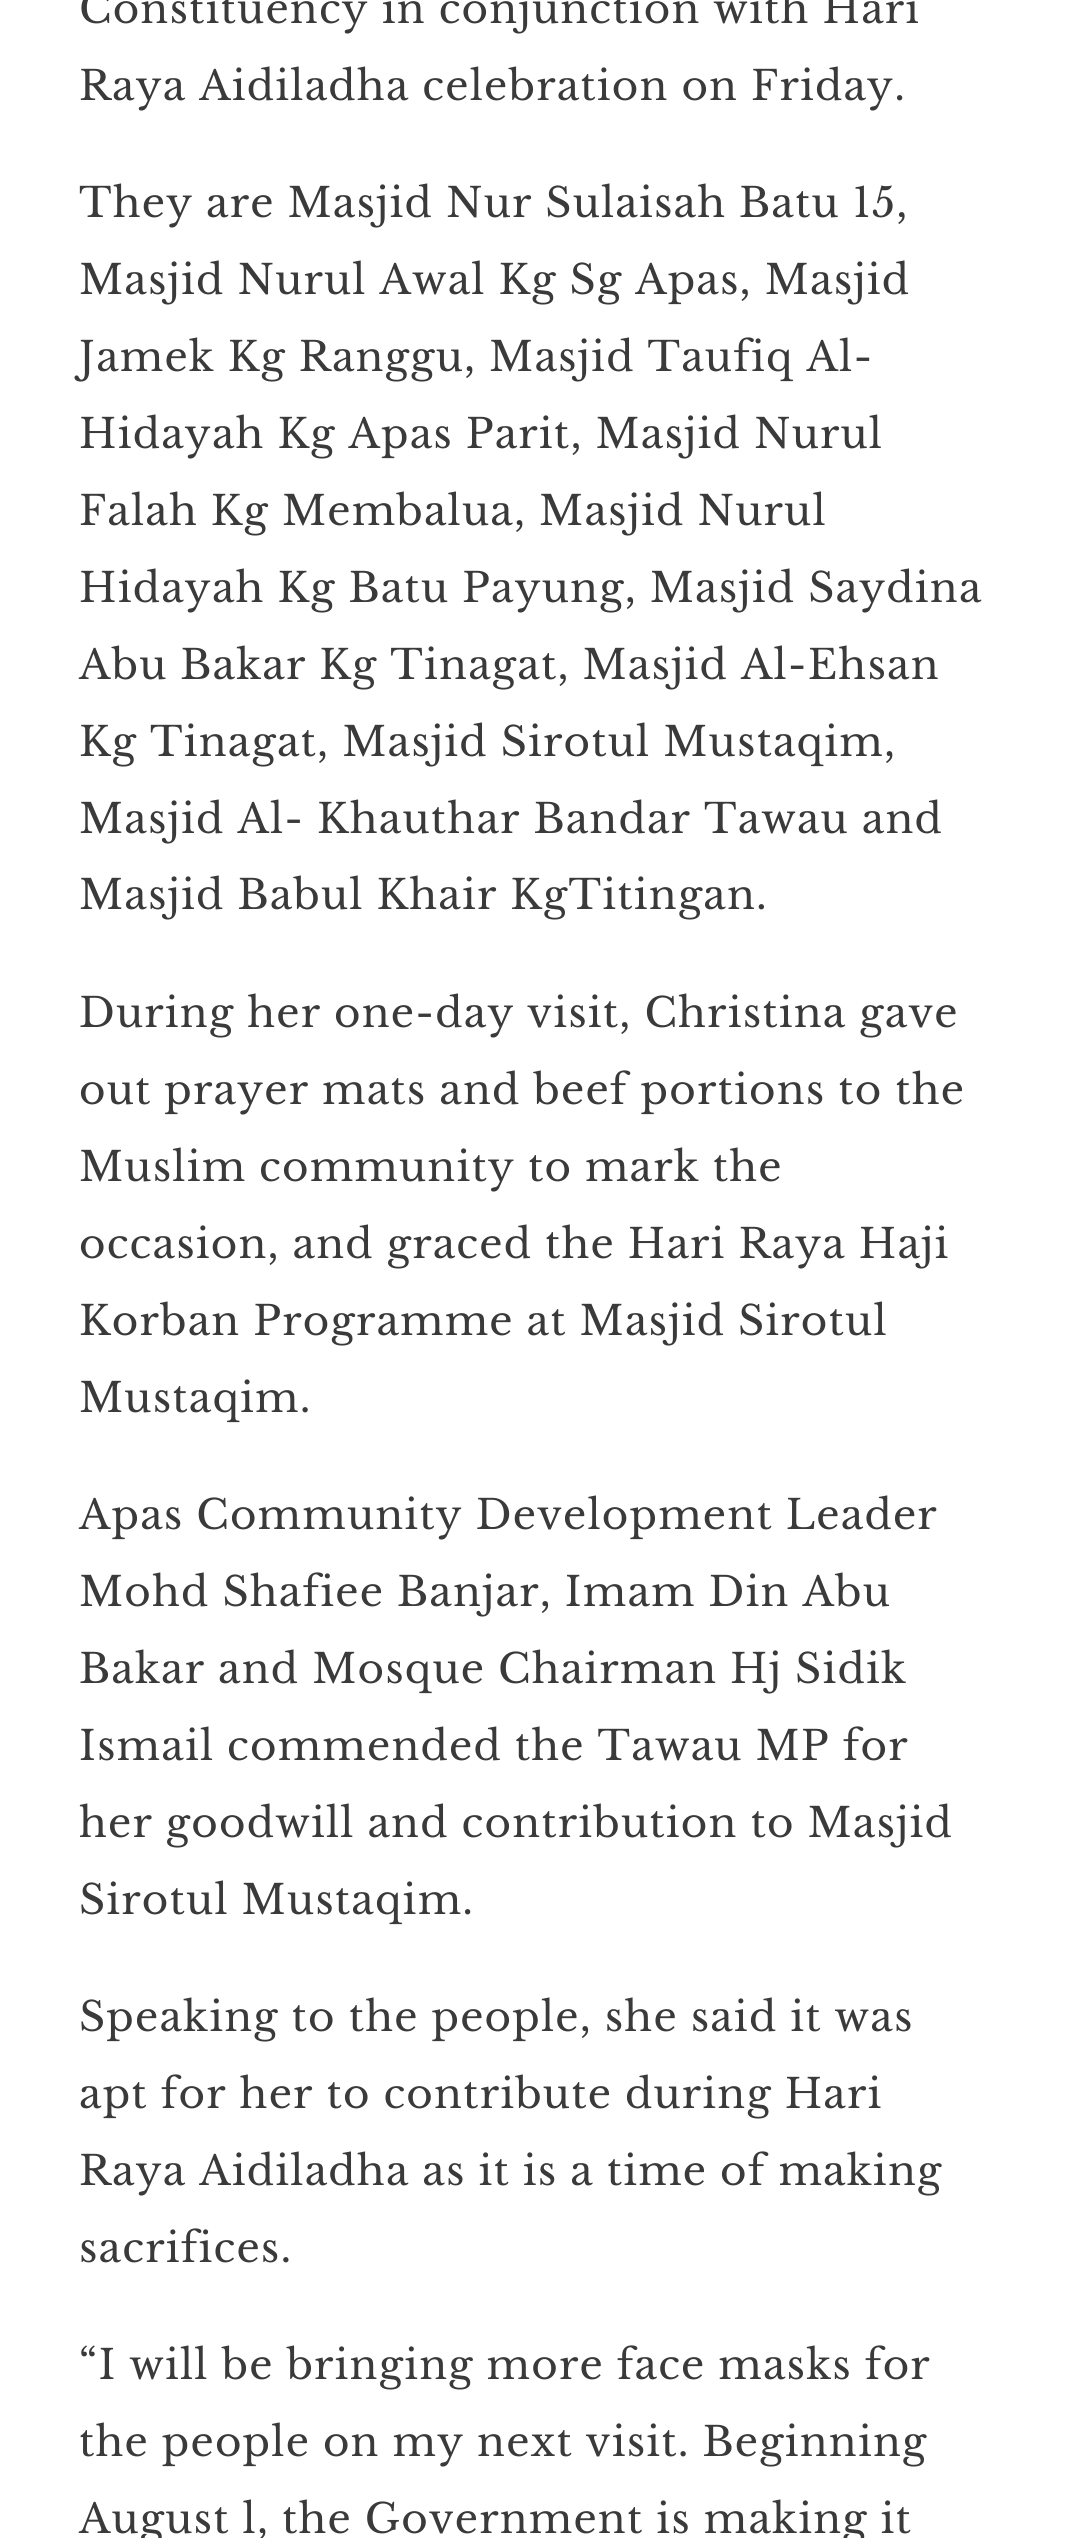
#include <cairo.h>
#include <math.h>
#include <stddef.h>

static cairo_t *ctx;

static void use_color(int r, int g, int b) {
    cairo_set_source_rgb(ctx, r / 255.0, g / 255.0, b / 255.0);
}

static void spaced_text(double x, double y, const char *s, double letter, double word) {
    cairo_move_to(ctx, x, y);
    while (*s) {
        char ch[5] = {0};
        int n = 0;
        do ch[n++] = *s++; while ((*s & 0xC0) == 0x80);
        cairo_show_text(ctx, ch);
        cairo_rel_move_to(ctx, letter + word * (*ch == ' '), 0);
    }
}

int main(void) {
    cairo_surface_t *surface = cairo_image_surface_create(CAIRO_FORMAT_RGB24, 1071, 2538);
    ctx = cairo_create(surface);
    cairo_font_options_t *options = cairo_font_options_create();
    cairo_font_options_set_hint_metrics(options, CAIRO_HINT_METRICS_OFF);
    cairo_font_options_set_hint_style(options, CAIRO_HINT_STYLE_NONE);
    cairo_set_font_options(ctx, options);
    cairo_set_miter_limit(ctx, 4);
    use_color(255, 255, 255);
    cairo_paint(ctx);
    cairo_select_font_face(ctx, "Libre Baskerville", CAIRO_FONT_SLANT_NORMAL, CAIRO_FONT_WEIGHT_NORMAL);
    cairo_set_font_size(ctx, 40.5);
    use_color(58, 58, 58);
    spaced_text(79, 23, "Constituency in conjunction with Hari", 1.2, 0);
    spaced_text(79, 100, "Raya Aidiladha celebration on Friday.", 1.2, 0);
    spaced_text(79, 217, "They are Masjid Nur Sulaisah Batu 15,", 1.2, 0);
    spaced_text(79, 294, "Masjid Nurul Awal Kg Sg Apas, Masjid", 1.2, 0);
    spaced_text(79, 371, "Jamek Kg Ranggu, Masjid Taufiq Al-", 1.2, 0);
    spaced_text(79, 448, "Hidayah Kg Apas Parit, Masjid Nurul", 1.2, 0);
    spaced_text(79, 525, "Falah Kg Membalua, Masjid Nurul", 1.2, 0);
    spaced_text(79, 602, "Hidayah Kg Batu Payung, Masjid Saydina", 1.2, 0);
    spaced_text(79, 679, "Abu Bakar Kg Tinagat, Masjid Al-Ehsan", 1.2, 0);
    spaced_text(79, 756, "Kg Tinagat, Masjid Sirotul Mustaqim,", 1.2, 0);
    spaced_text(79, 833, "Masjid Al- Khauthar Bandar Tawau and", 1.2, 0);
    spaced_text(79, 909, "Masjid Babul Khair KgTitingan.", 1.2, 0);
    spaced_text(79, 1027, "During her one-day visit, Christina gave", 1.2, 0);
    spaced_text(79, 1104, "out prayer mats and beef portions to the", 1.2, 0);
    spaced_text(79, 1181, "Muslim community to mark the", 1.2, 0);
    spaced_text(79, 1258, "occasion, and graced the Hari Raya Haji", 1.2, 0);
    spaced_text(79, 1335, "Korban Programme at Masjid Sirotul", 1.2, 0);
    spaced_text(79, 1412, "Mustaqim.", 1.2, 0);
    spaced_text(79, 1529, "Apas Community Development Leader", 1.2, 0);
    spaced_text(79, 1606, "Mohd Shafiee Banjar, Imam Din Abu", 1.2, 0);
    spaced_text(79, 1683, "Bakar and Mosque Chairman Hj Sidik", 1.2, 0);
    spaced_text(79, 1760, "Ismail commended the Tawau MP for", 1.2, 0);
    spaced_text(79, 1837, "her goodwill and contribution to Masjid", 1.2, 0);
    spaced_text(79, 1914, "Sirotul Mustaqim.", 1.2, 0);
    spaced_text(79, 2031, "Speaking to the people, she said it was", 1.2, 0);
    spaced_text(79, 2108, "apt for her to contribute during Hari", 1.2, 0);
    spaced_text(79, 2185, "Raya Aidiladha as it is a time of making", 1.2, 0);
    spaced_text(79, 2262, "sacrifices.", 1.2, 0);
    spaced_text(79, 2379, "“I will be bringing more face masks for", 1.2, 0);
    spaced_text(79, 2456, "the people on my next visit. Beginning", 1.2, 0);
    spaced_text(79, 2533, "August l, the Government is making it", 1.2, 0);
    cairo_surface_write_to_png(surface, "result.png");
    cairo_font_options_destroy(options);
    cairo_destroy(ctx);
    cairo_surface_destroy(surface);
    return 0;
}
